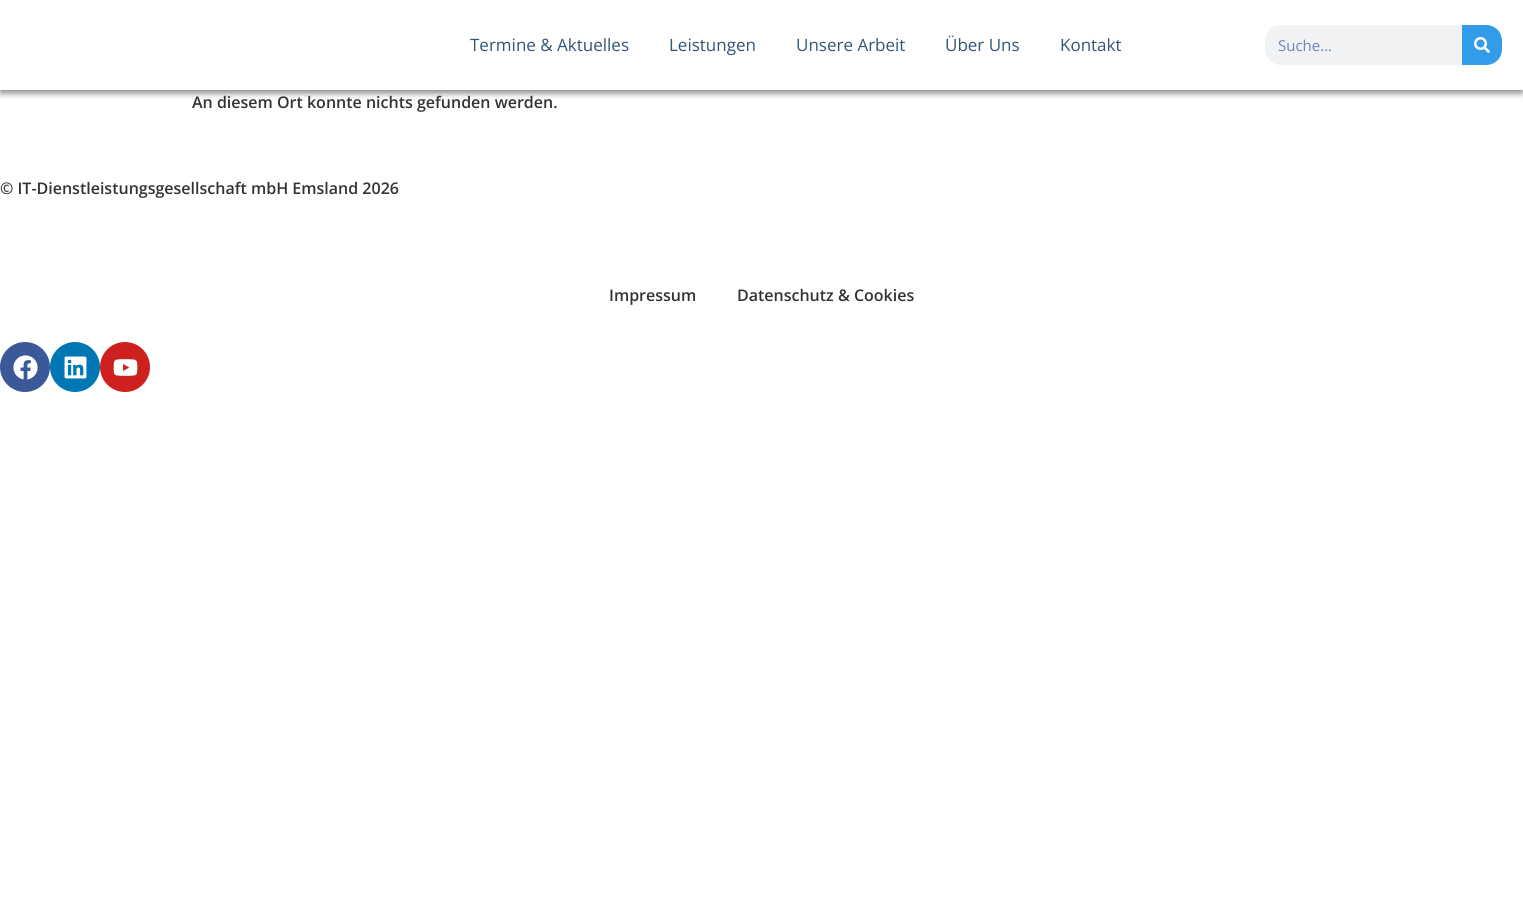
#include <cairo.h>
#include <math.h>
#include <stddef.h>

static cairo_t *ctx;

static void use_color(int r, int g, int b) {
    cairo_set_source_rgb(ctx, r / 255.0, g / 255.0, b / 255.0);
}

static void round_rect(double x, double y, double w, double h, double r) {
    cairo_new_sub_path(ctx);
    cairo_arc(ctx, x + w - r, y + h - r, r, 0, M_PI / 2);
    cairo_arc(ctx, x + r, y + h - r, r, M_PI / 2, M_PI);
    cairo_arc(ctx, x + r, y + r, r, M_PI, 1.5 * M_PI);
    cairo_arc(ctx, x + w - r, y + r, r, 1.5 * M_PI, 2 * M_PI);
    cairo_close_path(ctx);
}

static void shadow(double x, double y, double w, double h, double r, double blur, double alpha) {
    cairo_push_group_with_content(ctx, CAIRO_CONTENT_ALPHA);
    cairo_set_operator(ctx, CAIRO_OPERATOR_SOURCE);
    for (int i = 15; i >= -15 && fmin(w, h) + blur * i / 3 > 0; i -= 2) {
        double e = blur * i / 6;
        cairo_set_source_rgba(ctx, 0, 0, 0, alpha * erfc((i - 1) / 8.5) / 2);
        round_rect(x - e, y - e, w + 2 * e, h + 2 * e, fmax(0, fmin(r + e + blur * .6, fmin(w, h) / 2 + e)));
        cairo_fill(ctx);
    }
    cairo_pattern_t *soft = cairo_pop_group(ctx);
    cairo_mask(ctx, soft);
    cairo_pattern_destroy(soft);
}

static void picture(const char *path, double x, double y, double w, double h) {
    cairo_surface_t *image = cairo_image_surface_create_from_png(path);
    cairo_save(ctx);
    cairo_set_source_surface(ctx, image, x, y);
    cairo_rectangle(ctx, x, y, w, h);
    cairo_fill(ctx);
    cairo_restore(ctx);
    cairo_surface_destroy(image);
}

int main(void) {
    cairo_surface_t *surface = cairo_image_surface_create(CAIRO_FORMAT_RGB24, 1523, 903);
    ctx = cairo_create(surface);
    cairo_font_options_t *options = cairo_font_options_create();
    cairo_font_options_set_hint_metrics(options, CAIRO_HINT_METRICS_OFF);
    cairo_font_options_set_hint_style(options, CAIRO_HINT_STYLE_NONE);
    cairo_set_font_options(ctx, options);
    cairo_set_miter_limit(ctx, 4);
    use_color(255, 255, 255);
    cairo_paint(ctx);
    use_color(0, 0, 0);
    shadow(0, 3, 1523, 90, 1, 3.5, 0.5);
    use_color(255, 255, 255);
    cairo_new_path(ctx);
    cairo_move_to(ctx, 0, 0);
    cairo_line_to(ctx, 1523, 0);
    cairo_line_to(ctx, 1523, 89);
    cairo_curve_to(ctx, 1523, 89.5, 1522.5, 90, 1522, 90);
    cairo_line_to(ctx, 0, 90);
    cairo_close_path(ctx);
    cairo_fill(ctx);
    cairo_select_font_face(ctx, "Open Sans", CAIRO_FONT_SLANT_NORMAL, CAIRO_FONT_WEIGHT_NORMAL);
    cairo_set_font_size(ctx, 17);
    use_color(52, 84, 120);
    cairo_move_to(ctx, 470, 51);
    cairo_show_text(ctx, "Termine & Aktuelles");
    cairo_move_to(ctx, 669, 51);
    cairo_show_text(ctx, "Leistungen");
    cairo_move_to(ctx, 796, 51);
    cairo_show_text(ctx, "Unsere Arbeit");
    cairo_move_to(ctx, 945, 51);
    cairo_show_text(ctx, "Über Uns");
    cairo_move_to(ctx, 1060, 51);
    cairo_show_text(ctx, "Kontakt");
    use_color(241, 242, 243);
    round_rect(1265, 25, 237, 40, 16);
    cairo_fill(ctx);
    cairo_set_font_size(ctx, 15);
    use_color(112, 131, 186);
    cairo_move_to(ctx, 1278, 51);
    cairo_show_text(ctx, "Suche...");
    use_color(50, 156, 234);
    cairo_new_path(ctx);
    cairo_move_to(ctx, 1462, 25);
    cairo_line_to(ctx, 1486, 25);
    cairo_curve_to(ctx, 1495, 25, 1502, 32, 1502, 41);
    cairo_line_to(ctx, 1502, 49);
    cairo_curve_to(ctx, 1502, 58, 1495, 65, 1486, 65);
    cairo_line_to(ctx, 1462, 65);
    cairo_close_path(ctx);
    cairo_fill(ctx);
    picture("img1.png", 1474, 37, 16, 16);
    cairo_select_font_face(ctx, "Open Sans SemiBold", CAIRO_FONT_SLANT_NORMAL, CAIRO_FONT_WEIGHT_NORMAL);
    cairo_set_font_size(ctx, 16);
    use_color(51, 51, 51);
    cairo_move_to(ctx, 192, 108);
    cairo_show_text(ctx, "An diesem Ort konnte nichts gefunden werden.");
    cairo_move_to(ctx, 0, 194);
    cairo_show_text(ctx, "© IT-Dienstleistungsgesellschaft mbH Emsland 2026");
    cairo_move_to(ctx, 609, 301);
    cairo_show_text(ctx, "Impressum");
    cairo_move_to(ctx, 737, 301);
    cairo_show_text(ctx, "Datenschutz & Cookies");
    use_color(59, 89, 152);
    cairo_new_path(ctx);
    cairo_arc(ctx, 25, 367, 25, 0, 2 * M_PI);
    cairo_fill(ctx);
    picture("img2.png", 13, 355, 25, 25);
    use_color(0, 119, 181);
    cairo_arc(ctx, 75, 367, 25, 0, 2 * M_PI);
    cairo_fill(ctx);
    picture("img3.png", 64, 356, 23, 23);
    use_color(205, 32, 31);
    cairo_arc(ctx, 125, 367, 25, 0, 2 * M_PI);
    cairo_fill(ctx);
    picture("img4.png", 113, 359, 25, 17);
    cairo_surface_write_to_png(surface, "result.png");
    cairo_font_options_destroy(options);
    cairo_destroy(ctx);
    cairo_surface_destroy(surface);
    return 0;
}
